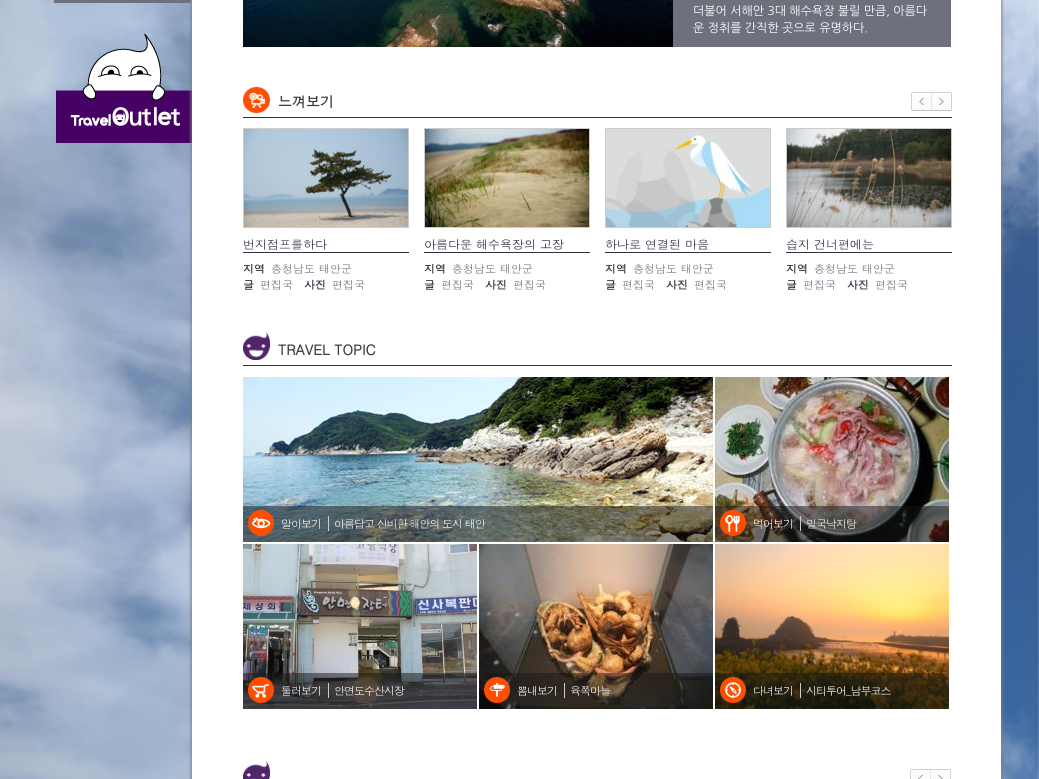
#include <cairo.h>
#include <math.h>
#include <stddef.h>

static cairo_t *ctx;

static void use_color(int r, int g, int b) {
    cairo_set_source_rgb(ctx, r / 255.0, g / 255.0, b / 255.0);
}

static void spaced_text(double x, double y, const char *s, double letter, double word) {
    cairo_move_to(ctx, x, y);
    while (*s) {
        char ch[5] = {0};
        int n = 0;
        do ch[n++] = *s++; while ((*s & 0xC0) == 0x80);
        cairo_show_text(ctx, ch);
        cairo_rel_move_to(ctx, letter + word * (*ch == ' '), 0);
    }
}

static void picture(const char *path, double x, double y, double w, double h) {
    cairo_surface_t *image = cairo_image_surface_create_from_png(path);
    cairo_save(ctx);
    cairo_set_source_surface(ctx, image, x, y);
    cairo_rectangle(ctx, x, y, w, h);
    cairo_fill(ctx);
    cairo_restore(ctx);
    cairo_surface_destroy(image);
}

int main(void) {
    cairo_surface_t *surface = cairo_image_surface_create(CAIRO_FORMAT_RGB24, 1039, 779);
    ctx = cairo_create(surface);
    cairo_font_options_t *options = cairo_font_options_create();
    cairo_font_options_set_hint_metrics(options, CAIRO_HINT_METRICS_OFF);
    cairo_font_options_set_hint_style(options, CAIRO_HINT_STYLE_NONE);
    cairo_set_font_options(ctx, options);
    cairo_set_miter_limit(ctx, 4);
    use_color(255, 255, 255);
    cairo_paint(ctx);
    picture("img1.png", 0, 0, 1039, 779);
    use_color(110, 113, 125);
    cairo_rectangle(ctx, 54, 0, 137, 3);
    cairo_fill(ctx);
    picture("img2.png", 56, 33, 136, 110);
    picture("img3.png", 188, 0, 817, 779);
    picture("img4.png", 243, 0, 430, 47);
    cairo_rectangle(ctx, 673, 0, 278, 47);
    cairo_fill(ctx);
    cairo_select_font_face(ctx, "NanumGothic", CAIRO_FONT_SLANT_NORMAL, CAIRO_FONT_WEIGHT_NORMAL);
    cairo_set_font_size(ctx, 12);
    use_color(255, 255, 255);
    cairo_move_to(ctx, 693, 15);
    cairo_show_text(ctx, "더불어 서해안 3대 해수욕장 불릴 만큼, 아름다");
    cairo_move_to(ctx, 693, 32);
    cairo_show_text(ctx, "운 정취를 간직한 곳으로 유명하다.");
    picture("img5.png", 243, 87, 27, 26);
    use_color(48, 51, 62);
    cairo_rectangle(ctx, 243, 117, 709, 1);
    cairo_fill(ctx);
    cairo_select_font_face(ctx, "Dotum", CAIRO_FONT_SLANT_NORMAL, CAIRO_FONT_WEIGHT_BOLD);
    cairo_set_font_size(ctx, 14);
    use_color(60, 60, 60);
    cairo_move_to(ctx, 278, 107);
    cairo_show_text(ctx, "느껴보기");
    picture("img6.png", 911, 92, 21, 19);
    picture("img7.png", 932, 92, 20, 19);
    cairo_rectangle(ctx, 243.5, 128.5, 165, 99);
    use_color(204, 204, 204);
    cairo_set_line_width(ctx, 1);
    cairo_stroke(ctx);
    picture("img8.png", 244, 129, 164, 98);
    use_color(48, 51, 62);
    cairo_rectangle(ctx, 243, 252, 166, 1);
    cairo_fill(ctx);
    cairo_select_font_face(ctx, "Dotum", CAIRO_FONT_SLANT_NORMAL, CAIRO_FONT_WEIGHT_NORMAL);
    cairo_set_font_size(ctx, 12);
    cairo_move_to(ctx, 243, 249);
    cairo_show_text(ctx, "번지점프를하다");
    cairo_select_font_face(ctx, "Dotum", CAIRO_FONT_SLANT_NORMAL, CAIRO_FONT_WEIGHT_BOLD);
    cairo_set_font_size(ctx, 11);
    cairo_move_to(ctx, 243, 273);
    cairo_show_text(ctx, "지역");
    cairo_select_font_face(ctx, "Dotum", CAIRO_FONT_SLANT_NORMAL, CAIRO_FONT_WEIGHT_NORMAL);
    use_color(115, 118, 131);
    cairo_move_to(ctx, 271, 273);
    cairo_show_text(ctx, "충청남도 태안군");
    cairo_select_font_face(ctx, "Dotum", CAIRO_FONT_SLANT_NORMAL, CAIRO_FONT_WEIGHT_BOLD);
    use_color(48, 51, 62);
    cairo_move_to(ctx, 243, 289);
    cairo_show_text(ctx, "글");
    cairo_select_font_face(ctx, "Dotum", CAIRO_FONT_SLANT_NORMAL, CAIRO_FONT_WEIGHT_NORMAL);
    use_color(115, 118, 131);
    cairo_move_to(ctx, 260, 289);
    cairo_show_text(ctx, "편집국");
    cairo_select_font_face(ctx, "Dotum", CAIRO_FONT_SLANT_NORMAL, CAIRO_FONT_WEIGHT_BOLD);
    use_color(48, 51, 62);
    cairo_move_to(ctx, 304, 289);
    cairo_show_text(ctx, "사진");
    cairo_select_font_face(ctx, "Dotum", CAIRO_FONT_SLANT_NORMAL, CAIRO_FONT_WEIGHT_NORMAL);
    use_color(115, 118, 131);
    cairo_move_to(ctx, 332, 289);
    cairo_show_text(ctx, "편집국");
    cairo_rectangle(ctx, 424.5, 128.5, 165, 99);
    use_color(204, 204, 204);
    cairo_stroke(ctx);
    picture("img9.png", 425, 129, 164, 98);
    use_color(48, 51, 62);
    cairo_rectangle(ctx, 424, 252, 166, 1);
    cairo_fill(ctx);
    cairo_set_font_size(ctx, 12);
    cairo_move_to(ctx, 424, 249);
    cairo_show_text(ctx, "아름다운 해수욕장의 고장");
    cairo_select_font_face(ctx, "Dotum", CAIRO_FONT_SLANT_NORMAL, CAIRO_FONT_WEIGHT_BOLD);
    cairo_set_font_size(ctx, 11);
    cairo_move_to(ctx, 424, 273);
    cairo_show_text(ctx, "지역");
    cairo_select_font_face(ctx, "Dotum", CAIRO_FONT_SLANT_NORMAL, CAIRO_FONT_WEIGHT_NORMAL);
    use_color(115, 118, 131);
    cairo_move_to(ctx, 452, 273);
    cairo_show_text(ctx, "충청남도 태안군");
    cairo_select_font_face(ctx, "Dotum", CAIRO_FONT_SLANT_NORMAL, CAIRO_FONT_WEIGHT_BOLD);
    use_color(48, 51, 62);
    cairo_move_to(ctx, 424, 289);
    cairo_show_text(ctx, "글");
    cairo_select_font_face(ctx, "Dotum", CAIRO_FONT_SLANT_NORMAL, CAIRO_FONT_WEIGHT_NORMAL);
    use_color(115, 118, 131);
    cairo_move_to(ctx, 441, 289);
    cairo_show_text(ctx, "편집국");
    cairo_select_font_face(ctx, "Dotum", CAIRO_FONT_SLANT_NORMAL, CAIRO_FONT_WEIGHT_BOLD);
    use_color(48, 51, 62);
    cairo_move_to(ctx, 485, 289);
    cairo_show_text(ctx, "사진");
    cairo_select_font_face(ctx, "Dotum", CAIRO_FONT_SLANT_NORMAL, CAIRO_FONT_WEIGHT_NORMAL);
    use_color(115, 118, 131);
    cairo_move_to(ctx, 513, 289);
    cairo_show_text(ctx, "편집국");
    cairo_rectangle(ctx, 605.5, 128.5, 165, 99);
    use_color(204, 204, 204);
    cairo_stroke(ctx);
    picture("img10.png", 606, 129, 164, 98);
    use_color(48, 51, 62);
    cairo_rectangle(ctx, 605, 252, 166, 1);
    cairo_fill(ctx);
    cairo_set_font_size(ctx, 12);
    cairo_move_to(ctx, 605, 249);
    cairo_show_text(ctx, "하나로 연결된 마음");
    cairo_select_font_face(ctx, "Dotum", CAIRO_FONT_SLANT_NORMAL, CAIRO_FONT_WEIGHT_BOLD);
    cairo_set_font_size(ctx, 11);
    cairo_move_to(ctx, 605, 273);
    cairo_show_text(ctx, "지역");
    cairo_select_font_face(ctx, "Dotum", CAIRO_FONT_SLANT_NORMAL, CAIRO_FONT_WEIGHT_NORMAL);
    use_color(115, 118, 131);
    cairo_move_to(ctx, 633, 273);
    cairo_show_text(ctx, "충청남도 태안군");
    cairo_select_font_face(ctx, "Dotum", CAIRO_FONT_SLANT_NORMAL, CAIRO_FONT_WEIGHT_BOLD);
    use_color(48, 51, 62);
    cairo_move_to(ctx, 605, 289);
    cairo_show_text(ctx, "글");
    cairo_select_font_face(ctx, "Dotum", CAIRO_FONT_SLANT_NORMAL, CAIRO_FONT_WEIGHT_NORMAL);
    use_color(115, 118, 131);
    cairo_move_to(ctx, 622, 289);
    cairo_show_text(ctx, "편집국");
    cairo_select_font_face(ctx, "Dotum", CAIRO_FONT_SLANT_NORMAL, CAIRO_FONT_WEIGHT_BOLD);
    use_color(48, 51, 62);
    cairo_move_to(ctx, 666, 289);
    cairo_show_text(ctx, "사진");
    cairo_select_font_face(ctx, "Dotum", CAIRO_FONT_SLANT_NORMAL, CAIRO_FONT_WEIGHT_NORMAL);
    use_color(115, 118, 131);
    cairo_move_to(ctx, 694, 289);
    cairo_show_text(ctx, "편집국");
    cairo_rectangle(ctx, 786.5, 128.5, 165, 99);
    use_color(204, 204, 204);
    cairo_stroke(ctx);
    picture("img11.png", 787, 129, 164, 98);
    use_color(48, 51, 62);
    cairo_rectangle(ctx, 786, 252, 166, 1);
    cairo_fill(ctx);
    cairo_set_font_size(ctx, 12);
    cairo_move_to(ctx, 786, 249);
    cairo_show_text(ctx, "습지 건너편에는");
    cairo_select_font_face(ctx, "Dotum", CAIRO_FONT_SLANT_NORMAL, CAIRO_FONT_WEIGHT_BOLD);
    cairo_set_font_size(ctx, 11);
    cairo_move_to(ctx, 786, 273);
    cairo_show_text(ctx, "지역");
    cairo_select_font_face(ctx, "Dotum", CAIRO_FONT_SLANT_NORMAL, CAIRO_FONT_WEIGHT_NORMAL);
    use_color(115, 118, 131);
    cairo_move_to(ctx, 814, 273);
    cairo_show_text(ctx, "충청남도 태안군");
    cairo_select_font_face(ctx, "Dotum", CAIRO_FONT_SLANT_NORMAL, CAIRO_FONT_WEIGHT_BOLD);
    use_color(48, 51, 62);
    cairo_move_to(ctx, 786, 289);
    cairo_show_text(ctx, "글");
    cairo_select_font_face(ctx, "Dotum", CAIRO_FONT_SLANT_NORMAL, CAIRO_FONT_WEIGHT_NORMAL);
    use_color(115, 118, 131);
    cairo_move_to(ctx, 803, 289);
    cairo_show_text(ctx, "편집국");
    cairo_select_font_face(ctx, "Dotum", CAIRO_FONT_SLANT_NORMAL, CAIRO_FONT_WEIGHT_BOLD);
    use_color(48, 51, 62);
    cairo_move_to(ctx, 847, 289);
    cairo_show_text(ctx, "사진");
    cairo_select_font_face(ctx, "Dotum", CAIRO_FONT_SLANT_NORMAL, CAIRO_FONT_WEIGHT_NORMAL);
    use_color(115, 118, 131);
    cairo_move_to(ctx, 875, 289);
    cairo_show_text(ctx, "편집국");
    picture("img12.png", 243, 332, 27, 28);
    use_color(48, 51, 62);
    cairo_rectangle(ctx, 243, 365, 709, 1);
    cairo_fill(ctx);
    cairo_select_font_face(ctx, "Dotum", CAIRO_FONT_SLANT_NORMAL, CAIRO_FONT_WEIGHT_BOLD);
    cairo_set_font_size(ctx, 14);
    use_color(60, 60, 60);
    cairo_move_to(ctx, 278, 355);
    cairo_show_text(ctx, "TRAVEL TOPIC");
    picture("img13.png", 243, 377, 470, 165);
    cairo_set_source_rgba(ctx, 0.086, 0.086, 0.086, 0.5);
    cairo_rectangle(ctx, 243, 506, 470, 36);
    cairo_fill(ctx);
    picture("img14.png", 248, 510, 26, 26);
    cairo_select_font_face(ctx, "Dotum", CAIRO_FONT_SLANT_NORMAL, CAIRO_FONT_WEIGHT_NORMAL);
    cairo_set_font_size(ctx, 11);
    use_color(243, 242, 241);
    spaced_text(281, 528, "알아보기", -1, 0);
    use_color(204, 204, 204);
    cairo_rectangle(ctx, 328, 516, 1, 15);
    cairo_fill(ctx);
    use_color(243, 242, 241);
    spaced_text(334, 528, "아름답고 신비한 해안의 도시 태안", -1, 0);
    picture("img15.png", 715, 377, 234, 165);
    cairo_set_source_rgba(ctx, 0.086, 0.086, 0.086, 0.5);
    cairo_rectangle(ctx, 715, 506, 234, 36);
    cairo_fill(ctx);
    picture("img16.png", 720, 510, 26, 26);
    use_color(243, 242, 241);
    spaced_text(753, 528, "먹어보기", -1, 0);
    use_color(204, 204, 204);
    cairo_rectangle(ctx, 800, 516, 1, 15);
    cairo_fill(ctx);
    use_color(243, 242, 241);
    spaced_text(806, 528, "밀국낙지탕", -1, 0);
    picture("img17.png", 243, 544, 234, 165);
    cairo_set_source_rgba(ctx, 0.086, 0.086, 0.086, 0.5);
    cairo_rectangle(ctx, 243, 673, 234, 36);
    cairo_fill(ctx);
    picture("img18.png", 248, 677, 26, 26);
    use_color(243, 242, 241);
    spaced_text(281, 695, "둘러보기", -1, 0);
    use_color(204, 204, 204);
    cairo_rectangle(ctx, 328, 683, 1, 15);
    cairo_fill(ctx);
    use_color(243, 242, 241);
    spaced_text(334, 695, "안면도수산시장", -1, 0);
    picture("img19.png", 479, 544, 234, 165);
    cairo_set_source_rgba(ctx, 0.086, 0.086, 0.086, 0.5);
    cairo_rectangle(ctx, 479, 673, 234, 36);
    cairo_fill(ctx);
    picture("img20.png", 484, 677, 26, 26);
    use_color(243, 242, 241);
    spaced_text(517, 695, "뽐내보기", -1, 0);
    use_color(204, 204, 204);
    cairo_rectangle(ctx, 564, 683, 1, 15);
    cairo_fill(ctx);
    use_color(243, 242, 241);
    spaced_text(570, 695, "육쪽마늘", -1, 0);
    picture("img21.png", 715, 544, 234, 165);
    cairo_set_source_rgba(ctx, 0.086, 0.086, 0.086, 0.5);
    cairo_rectangle(ctx, 715, 673, 234, 36);
    cairo_fill(ctx);
    picture("img22.png", 720, 677, 26, 26);
    use_color(243, 242, 241);
    spaced_text(753, 695, "다녀보기", -1, 0);
    use_color(204, 204, 204);
    cairo_rectangle(ctx, 800, 683, 1, 15);
    cairo_fill(ctx);
    use_color(243, 242, 241);
    spaced_text(806, 695, "시티투어_남부코스", -1, 0);
    picture("img23.png", 243, 761, 27, 18);
    picture("img24.png", 910, 769, 21, 10);
    picture("img25.png", 931, 769, 20, 10);
    cairo_surface_write_to_png(surface, "result.png");
    cairo_font_options_destroy(options);
    cairo_destroy(ctx);
    cairo_surface_destroy(surface);
    return 0;
}
